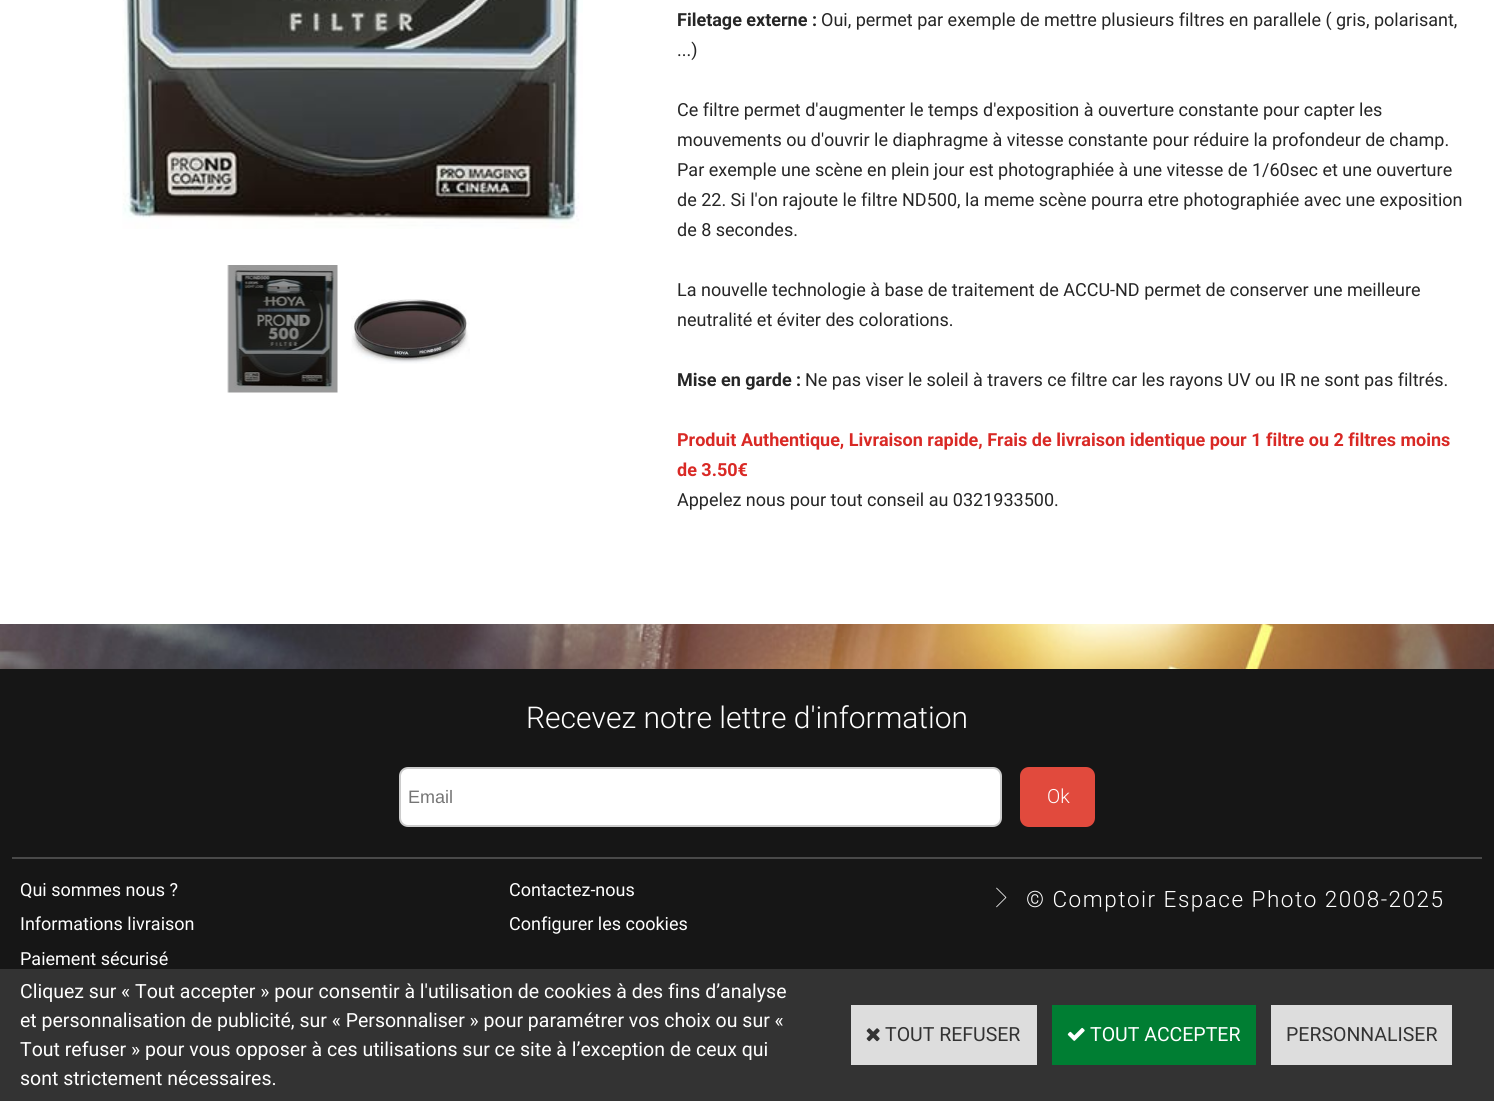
#include <cairo.h>
#include <math.h>
#include <stddef.h>

static cairo_t *ctx;

static void use_color(int r, int g, int b) {
    cairo_set_source_rgb(ctx, r / 255.0, g / 255.0, b / 255.0);
}

static void spaced_text(double x, double y, const char *s, double letter, double word) {
    cairo_move_to(ctx, x, y);
    while (*s) {
        char ch[5] = {0};
        int n = 0;
        do ch[n++] = *s++; while ((*s & 0xC0) == 0x80);
        cairo_show_text(ctx, ch);
        cairo_rel_move_to(ctx, letter + word * (*ch == ' '), 0);
    }
}

static void round_rect(double x, double y, double w, double h, double r) {
    cairo_new_sub_path(ctx);
    cairo_arc(ctx, x + w - r, y + h - r, r, 0, M_PI / 2);
    cairo_arc(ctx, x + r, y + h - r, r, M_PI / 2, M_PI);
    cairo_arc(ctx, x + r, y + r, r, M_PI, 1.5 * M_PI);
    cairo_arc(ctx, x + w - r, y + r, r, 1.5 * M_PI, 2 * M_PI);
    cairo_close_path(ctx);
}

static void picture(const char *path, double x, double y, double w, double h) {
    cairo_surface_t *image = cairo_image_surface_create_from_png(path);
    cairo_save(ctx);
    cairo_set_source_surface(ctx, image, x, y);
    cairo_rectangle(ctx, x, y, w, h);
    cairo_fill(ctx);
    cairo_restore(ctx);
    cairo_surface_destroy(image);
}

int main(void) {
    cairo_surface_t *surface = cairo_image_surface_create(CAIRO_FORMAT_RGB24, 1494, 1101);
    ctx = cairo_create(surface);
    cairo_font_options_t *options = cairo_font_options_create();
    cairo_font_options_set_hint_metrics(options, CAIRO_HINT_METRICS_OFF);
    cairo_font_options_set_hint_style(options, CAIRO_HINT_STYLE_NONE);
    cairo_set_font_options(ctx, options);
    cairo_set_miter_limit(ctx, 4);
    use_color(255, 255, 255);
    cairo_paint(ctx);
    picture("img1.png", 0, 624, 1494, 45);
    picture("img2.png", 122, 0, 461, 229);
    picture("img3.png", 227, 265, 111, 128);
    picture("img4.png", 351, 299, 119, 65);
    cairo_select_font_face(ctx, "Roboto", CAIRO_FONT_SLANT_NORMAL, CAIRO_FONT_WEIGHT_BOLD);
    cairo_set_font_size(ctx, 18);
    use_color(38, 38, 38);
    cairo_move_to(ctx, 677, 26);
    cairo_show_text(ctx, "Filetage externe :");
    cairo_select_font_face(ctx, "Roboto", CAIRO_FONT_SLANT_NORMAL, CAIRO_FONT_WEIGHT_NORMAL);
    cairo_move_to(ctx, 821, 26);
    cairo_show_text(ctx, "Oui, permet par exemple de mettre plusieurs filtres en parallele ( gris, polarisant,");
    cairo_move_to(ctx, 677, 56);
    cairo_show_text(ctx, "...)");
    cairo_move_to(ctx, 677, 116);
    cairo_show_text(ctx, "Ce filtre permet d'augmenter le temps d'exposition à ouverture constante pour capter les");
    cairo_move_to(ctx, 677, 146);
    cairo_show_text(ctx, "mouvements ou d'ouvrir le diaphragme à vitesse constante pour réduire la profondeur de champ.");
    cairo_move_to(ctx, 677, 176);
    cairo_show_text(ctx, "Par exemple une scène en plein jour est photographiée à une vitesse de 1/60sec et une ouverture");
    cairo_move_to(ctx, 677, 206);
    cairo_show_text(ctx, "de 22. Si l'on rajoute le filtre ND500, la meme scène pourra etre photographiée avec une exposition");
    cairo_move_to(ctx, 677, 236);
    cairo_show_text(ctx, "de 8 secondes.");
    cairo_move_to(ctx, 677, 296);
    cairo_show_text(ctx, "La nouvelle technologie à base de traitement de ACCU-ND permet de conserver une meilleure");
    cairo_move_to(ctx, 677, 326);
    cairo_show_text(ctx, "neutralité et éviter des colorations.");
    cairo_select_font_face(ctx, "Roboto", CAIRO_FONT_SLANT_NORMAL, CAIRO_FONT_WEIGHT_BOLD);
    cairo_move_to(ctx, 677, 386);
    cairo_show_text(ctx, "Mise en garde :");
    cairo_select_font_face(ctx, "Roboto", CAIRO_FONT_SLANT_NORMAL, CAIRO_FONT_WEIGHT_NORMAL);
    cairo_move_to(ctx, 805, 386);
    cairo_show_text(ctx, "Ne pas viser le soleil à travers ce filtre car les rayons UV ou IR ne sont pas filtrés.");
    cairo_select_font_face(ctx, "Roboto", CAIRO_FONT_SLANT_NORMAL, CAIRO_FONT_WEIGHT_BOLD);
    use_color(217, 41, 37);
    cairo_move_to(ctx, 677, 446);
    cairo_show_text(ctx, "Produit Authentique, Livraison rapide, Frais de livraison identique pour 1 filtre ou 2 filtres moins");
    cairo_move_to(ctx, 677, 476);
    cairo_show_text(ctx, "de 3.50€");
    cairo_select_font_face(ctx, "Roboto", CAIRO_FONT_SLANT_NORMAL, CAIRO_FONT_WEIGHT_NORMAL);
    use_color(38, 38, 38);
    cairo_move_to(ctx, 677, 506);
    cairo_show_text(ctx, "Appelez nous pour tout conseil au 0321933500.");
    use_color(22, 22, 22);
    cairo_rectangle(ctx, 0, 669, 1494, 300);
    cairo_fill(ctx);
    use_color(73, 73, 73);
    cairo_rectangle(ctx, 12, 857, 1470, 2);
    cairo_fill(ctx);
    cairo_select_font_face(ctx, "Roboto Light", CAIRO_FONT_SLANT_NORMAL, CAIRO_FONT_WEIGHT_NORMAL);
    cairo_set_font_size(ctx, 30);
    use_color(255, 255, 255);
    cairo_move_to(ctx, 526, 728);
    cairo_show_text(ctx, "Recevez notre lettre d'information");
    round_rect(400, 768, 601, 58, 8);
    cairo_fill_preserve(ctx);
    use_color(204, 204, 204);
    cairo_stroke(ctx);
    cairo_select_font_face(ctx, "Liberation Sans", CAIRO_FONT_SLANT_NORMAL, CAIRO_FONT_WEIGHT_NORMAL);
    cairo_set_font_size(ctx, 18);
    use_color(117, 117, 117);
    cairo_move_to(ctx, 408, 803);
    cairo_show_text(ctx, "Email");
    use_color(225, 74, 61);
    round_rect(1020, 767, 75, 60, 9);
    cairo_fill(ctx);
    cairo_select_font_face(ctx, "Roboto Light", CAIRO_FONT_SLANT_NORMAL, CAIRO_FONT_WEIGHT_NORMAL);
    cairo_set_font_size(ctx, 19.5);
    use_color(255, 255, 255);
    cairo_move_to(ctx, 1047, 803);
    cairo_show_text(ctx, "Ok");
    cairo_select_font_face(ctx, "Roboto", CAIRO_FONT_SLANT_NORMAL, CAIRO_FONT_WEIGHT_NORMAL);
    cairo_set_font_size(ctx, 18);
    cairo_move_to(ctx, 20, 896);
    cairo_show_text(ctx, "Qui sommes nous ?");
    cairo_move_to(ctx, 20, 930);
    cairo_show_text(ctx, "Informations livraison");
    cairo_move_to(ctx, 20, 965);
    cairo_show_text(ctx, "Paiement sécurisé");
    cairo_move_to(ctx, 509, 896);
    cairo_show_text(ctx, "Contactez-nous");
    cairo_move_to(ctx, 509, 930);
    cairo_show_text(ctx, "Configurer les cookies");
    picture("img5.png", 996, 887, 11, 21);
    cairo_select_font_face(ctx, "Roboto Light", CAIRO_FONT_SLANT_NORMAL, CAIRO_FONT_WEIGHT_NORMAL);
    cairo_set_font_size(ctx, 22.5);
    spaced_text(1026, 907, "© Comptoir Espace Photo 2008-2025", 1.5, 0);
    use_color(51, 51, 51);
    cairo_rectangle(ctx, 0, 969, 1494, 132);
    cairo_fill(ctx);
    cairo_select_font_face(ctx, "Roboto", CAIRO_FONT_SLANT_NORMAL, CAIRO_FONT_WEIGHT_NORMAL);
    cairo_set_font_size(ctx, 19.5);
    use_color(255, 255, 255);
    cairo_move_to(ctx, 20, 998);
    cairo_show_text(ctx, "Cliquez sur « Tout accepter » pour consentir à l'utilisation de cookies à des fins d’analyse");
    cairo_move_to(ctx, 20, 1027);
    cairo_show_text(ctx, "et personnalisation de publicité, sur « Personnaliser » pour paramétrer vos choix ou sur «");
    cairo_move_to(ctx, 20, 1056);
    cairo_show_text(ctx, "Tout refuser » pour vous opposer à ces utilisations sur ce site à l’exception de ceux qui");
    cairo_move_to(ctx, 20, 1085);
    cairo_show_text(ctx, "sont strictement nécessaires.");
    use_color(221, 221, 221);
    cairo_rectangle(ctx, 851, 1005, 186, 60);
    cairo_fill(ctx);
    picture("img6.png", 866, 1028, 14, 14);
    use_color(51, 51, 51);
    cairo_move_to(ctx, 885, 1041);
    cairo_show_text(ctx, "TOUT REFUSER");
    use_color(0, 126, 51);
    cairo_rectangle(ctx, 1052, 1005, 204, 60);
    cairo_fill(ctx);
    picture("img7.png", 1067, 1027, 18, 14);
    use_color(255, 255, 255);
    cairo_move_to(ctx, 1090, 1041);
    cairo_show_text(ctx, "TOUT ACCEPTER");
    use_color(221, 221, 221);
    cairo_rectangle(ctx, 1271, 1005, 181, 60);
    cairo_fill(ctx);
    use_color(51, 51, 51);
    cairo_move_to(ctx, 1286, 1041);
    cairo_show_text(ctx, "PERSONNALISER");
    cairo_surface_write_to_png(surface, "result.png");
    cairo_font_options_destroy(options);
    cairo_destroy(ctx);
    cairo_surface_destroy(surface);
    return 0;
}
